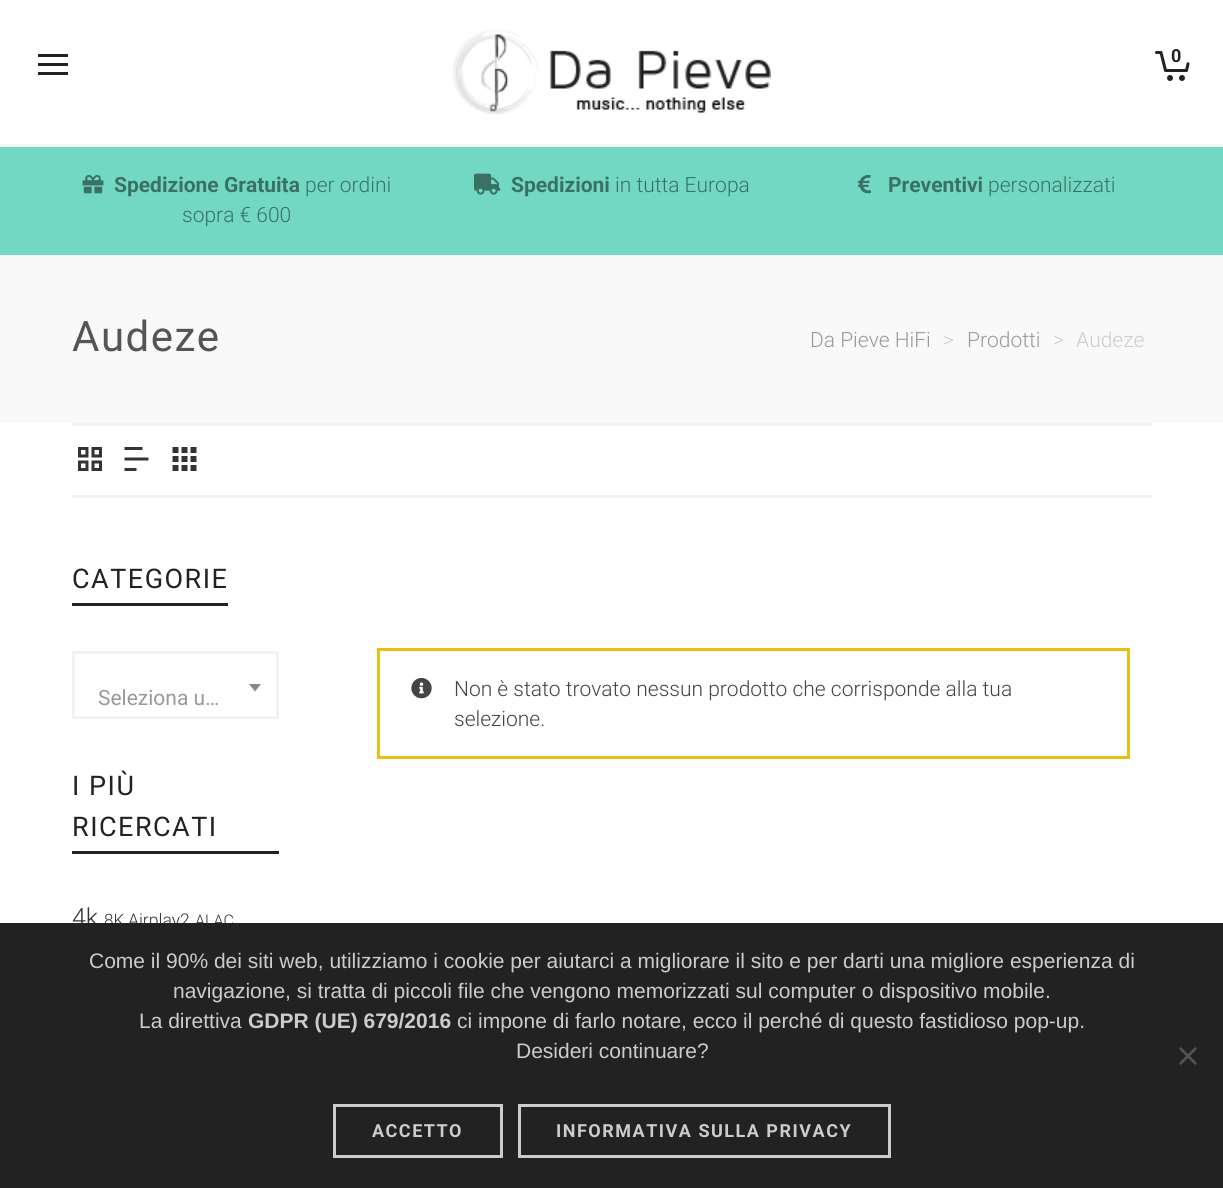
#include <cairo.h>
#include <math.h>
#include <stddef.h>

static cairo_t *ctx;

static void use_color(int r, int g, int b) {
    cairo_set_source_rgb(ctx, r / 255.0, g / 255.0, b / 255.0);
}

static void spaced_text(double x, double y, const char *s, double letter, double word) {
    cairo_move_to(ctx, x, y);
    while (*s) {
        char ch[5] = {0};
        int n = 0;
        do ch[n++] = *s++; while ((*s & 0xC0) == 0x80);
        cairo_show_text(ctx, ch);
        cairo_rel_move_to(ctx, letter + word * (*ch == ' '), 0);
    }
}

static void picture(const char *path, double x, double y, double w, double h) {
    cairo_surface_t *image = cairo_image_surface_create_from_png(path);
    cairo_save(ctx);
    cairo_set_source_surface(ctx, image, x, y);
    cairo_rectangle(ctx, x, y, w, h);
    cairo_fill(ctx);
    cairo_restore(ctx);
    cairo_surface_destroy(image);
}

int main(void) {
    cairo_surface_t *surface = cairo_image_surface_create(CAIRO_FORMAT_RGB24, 1223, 1188);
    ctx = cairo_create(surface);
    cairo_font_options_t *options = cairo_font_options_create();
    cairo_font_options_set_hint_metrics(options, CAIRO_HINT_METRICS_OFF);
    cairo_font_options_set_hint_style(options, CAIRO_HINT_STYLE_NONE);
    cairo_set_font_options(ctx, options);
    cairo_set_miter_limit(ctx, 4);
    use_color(255, 255, 255);
    cairo_paint(ctx);
    use_color(245, 245, 245);
    cairo_rectangle(ctx, 0, 144, 1223, 3);
    cairo_fill(ctx);
    use_color(34, 34, 34);
    cairo_rectangle(ctx, 38, 63, 30, 3);
    cairo_fill(ctx);
    cairo_rectangle(ctx, 38, 54, 30, 3);
    cairo_fill(ctx);
    cairo_rectangle(ctx, 38, 72, 30, 3);
    cairo_fill(ctx);
    picture("img1.png", 453, 30, 318, 84);
    picture("img2.png", 1155, 51, 35, 30);
    cairo_select_font_face(ctx, "Roboto", CAIRO_FONT_SLANT_NORMAL, CAIRO_FONT_WEIGHT_BOLD);
    cairo_set_font_size(ctx, 18);
    cairo_move_to(ctx, 1171, 62);
    cairo_show_text(ctx, "0");
    use_color(114, 216, 196);
    cairo_rectangle(ctx, 0, 147, 1223, 108);
    cairo_fill(ctx);
    picture("img3.png", 82, 175, 22, 19);
    cairo_set_font_size(ctx, 21);
    use_color(57, 114, 101);
    cairo_move_to(ctx, 114, 192);
    cairo_show_text(ctx, "Spedizione Gratuita");
    cairo_select_font_face(ctx, "Roboto Light", CAIRO_FONT_SLANT_NORMAL, CAIRO_FONT_WEIGHT_NORMAL);
    cairo_move_to(ctx, 305, 192);
    cairo_show_text(ctx, "per ordini");
    cairo_move_to(ctx, 182, 222);
    cairo_show_text(ctx, "sopra € 600");
    picture("img4.png", 474, 173, 27, 22);
    cairo_select_font_face(ctx, "Roboto", CAIRO_FONT_SLANT_NORMAL, CAIRO_FONT_WEIGHT_BOLD);
    cairo_move_to(ctx, 511, 192);
    cairo_show_text(ctx, "Spedizioni");
    cairo_select_font_face(ctx, "Roboto Light", CAIRO_FONT_SLANT_NORMAL, CAIRO_FONT_WEIGHT_NORMAL);
    cairo_move_to(ctx, 615, 192);
    cairo_show_text(ctx, "in tutta Europa");
    picture("img5.png", 858, 175, 14, 19);
    cairo_select_font_face(ctx, "Roboto", CAIRO_FONT_SLANT_NORMAL, CAIRO_FONT_WEIGHT_BOLD);
    cairo_move_to(ctx, 888, 192);
    cairo_show_text(ctx, "Preventivi");
    cairo_select_font_face(ctx, "Roboto Light", CAIRO_FONT_SLANT_NORMAL, CAIRO_FONT_WEIGHT_NORMAL);
    cairo_move_to(ctx, 988, 192);
    cairo_show_text(ctx, "personalizzati");
    use_color(249, 249, 249);
    cairo_rectangle(ctx, 0, 255, 1223, 168);
    cairo_fill(ctx);
    cairo_select_font_face(ctx, "Roboto", CAIRO_FONT_SLANT_NORMAL, CAIRO_FONT_WEIGHT_NORMAL);
    cairo_set_font_size(ctx, 42);
    use_color(85, 85, 85);
    spaced_text(72, 351, "Audeze", 1.5, 0);
    cairo_select_font_face(ctx, "Roboto Light", CAIRO_FONT_SLANT_NORMAL, CAIRO_FONT_WEIGHT_NORMAL);
    cairo_set_font_size(ctx, 21);
    use_color(153, 153, 153);
    cairo_move_to(ctx, 810, 347);
    cairo_show_text(ctx, "Da Pieve HiFi");
    use_color(204, 204, 204);
    cairo_move_to(ctx, 943, 347);
    cairo_show_text(ctx, ">");
    use_color(153, 153, 153);
    cairo_move_to(ctx, 967, 347);
    cairo_show_text(ctx, "Prodotti");
    use_color(204, 204, 204);
    cairo_move_to(ctx, 1053, 347);
    cairo_show_text(ctx, ">");
    cairo_move_to(ctx, 1076, 347);
    cairo_show_text(ctx, "Audeze");
    use_color(242, 242, 242);
    cairo_rectangle(ctx, 72, 423, 1080, 3);
    cairo_fill(ctx);
    cairo_rectangle(ctx, 72, 495, 1080, 3);
    cairo_fill(ctx);
    picture("img6.png", 78, 447, 24, 24);
    picture("img7.png", 124, 447, 25, 24);
    picture("img8.png", 172, 447, 25, 24);
    use_color(34, 34, 34);
    cairo_rectangle(ctx, 72, 603, 156, 3);
    cairo_fill(ctx);
    cairo_select_font_face(ctx, "Roboto", CAIRO_FONT_SLANT_NORMAL, CAIRO_FONT_WEIGHT_NORMAL);
    cairo_set_font_size(ctx, 27);
    spaced_text(72, 588, "CATEGORIE", 1.5, 0);
    cairo_rectangle(ctx, 73.5, 652.5, 204, 65);
    use_color(242, 242, 242);
    cairo_set_line_width(ctx, 3);
    cairo_stroke(ctx);
    use_color(136, 136, 136);
    cairo_new_path(ctx);
    cairo_move_to(ctx, 249, 684);
    cairo_line_to(ctx, 261, 684);
    cairo_line_to(ctx, 255, 691.5);
    cairo_close_path(ctx);
    cairo_fill(ctx);
    cairo_set_font_size(ctx, 21);
    use_color(153, 153, 153);
    cairo_move_to(ctx, 98, 705);
    cairo_show_text(ctx, "Seleziona u…");
    use_color(34, 34, 34);
    cairo_rectangle(ctx, 72, 851, 207, 3);
    cairo_fill(ctx);
    cairo_set_font_size(ctx, 27);
    spaced_text(72, 795, "I PIÙ", 1.5, 0);
    spaced_text(72, 836, "RICERCATI", 1.5, 0);
    cairo_select_font_face(ctx, "Roboto Light", CAIRO_FONT_SLANT_NORMAL, CAIRO_FONT_WEIGHT_NORMAL);
    cairo_set_font_size(ctx, 25);
    use_color(51, 51, 51);
    cairo_move_to(ctx, 72, 926);
    cairo_show_text(ctx, "4k");
    cairo_set_font_size(ctx, 17);
    cairo_move_to(ctx, 104, 926);
    cairo_show_text(ctx, "8K");
    cairo_set_font_size(ctx, 17.5);
    cairo_move_to(ctx, 128, 926);
    cairo_show_text(ctx, "Airplay2");
    cairo_set_font_size(ctx, 16);
    cairo_move_to(ctx, 195, 926);
    cairo_show_text(ctx, "ALAC");
    cairo_rectangle(ctx, 378.5, 649.5, 750, 108);
    use_color(234, 190, 18);
    cairo_stroke(ctx);
    picture("img9.png", 411, 678, 21, 21);
    cairo_set_font_size(ctx, 21);
    use_color(68, 68, 68);
    cairo_move_to(ctx, 454, 696);
    cairo_show_text(ctx, "Non è stato trovato nessun prodotto che corrisponde alla tua");
    cairo_move_to(ctx, 454, 726);
    cairo_show_text(ctx, "selezione.");
    use_color(34, 34, 34);
    cairo_rectangle(ctx, 0, 923, 1223, 265);
    cairo_fill(ctx);
    cairo_select_font_face(ctx, "Liberation Sans", CAIRO_FONT_SLANT_NORMAL, CAIRO_FONT_WEIGHT_NORMAL);
    use_color(204, 204, 204);
    cairo_move_to(ctx, 89, 968);
    cairo_show_text(ctx, "Come il 90% dei siti web, utilizziamo i cookie per aiutarci a migliorare il sito e per darti una migliore esperienza di");
    cairo_move_to(ctx, 173, 998);
    cairo_show_text(ctx, "navigazione, si tratta di piccoli file che vengono memorizzati sul computer o dispositivo mobile.");
    cairo_move_to(ctx, 139, 1028);
    cairo_show_text(ctx, "La direttiva");
    cairo_select_font_face(ctx, "Liberation Sans", CAIRO_FONT_SLANT_NORMAL, CAIRO_FONT_WEIGHT_BOLD);
    cairo_move_to(ctx, 248, 1028);
    cairo_show_text(ctx, "GDPR (UE) 679/2016");
    cairo_select_font_face(ctx, "Liberation Sans", CAIRO_FONT_SLANT_NORMAL, CAIRO_FONT_WEIGHT_NORMAL);
    cairo_move_to(ctx, 457, 1028);
    cairo_show_text(ctx, "ci impone di farlo notare, ecco il perché di questo fastidioso pop-up.");
    cairo_move_to(ctx, 516, 1058);
    cairo_show_text(ctx, "Desideri continuare?");
    use_color(81, 81, 81);
    cairo_new_path(ctx);
    cairo_move_to(ctx, 1195, 1047);
    cairo_line_to(ctx, 1197, 1049);
    cairo_line_to(ctx, 1181, 1065);
    cairo_line_to(ctx, 1179, 1063);
    cairo_close_path(ctx);
    cairo_fill(ctx);
    cairo_new_path(ctx);
    cairo_move_to(ctx, 1179, 1049);
    cairo_line_to(ctx, 1181, 1047);
    cairo_line_to(ctx, 1197, 1063);
    cairo_line_to(ctx, 1195, 1065);
    cairo_close_path(ctx);
    cairo_fill(ctx);
    cairo_rectangle(ctx, 334.5, 1105.5, 167, 51);
    use_color(204, 204, 204);
    cairo_stroke(ctx);
    cairo_select_font_face(ctx, "Roboto", CAIRO_FONT_SLANT_NORMAL, CAIRO_FONT_WEIGHT_BOLD);
    cairo_set_font_size(ctx, 18);
    spaced_text(372, 1137, "ACCETTO", 1.5, 0);
    cairo_rectangle(ctx, 519.5, 1105.5, 370, 51);
    cairo_stroke(ctx);
    spaced_text(556, 1137, "INFORMATIVA SULLA PRIVACY", 1.5, 0);
    cairo_surface_write_to_png(surface, "result.png");
    cairo_font_options_destroy(options);
    cairo_destroy(ctx);
    cairo_surface_destroy(surface);
    return 0;
}
